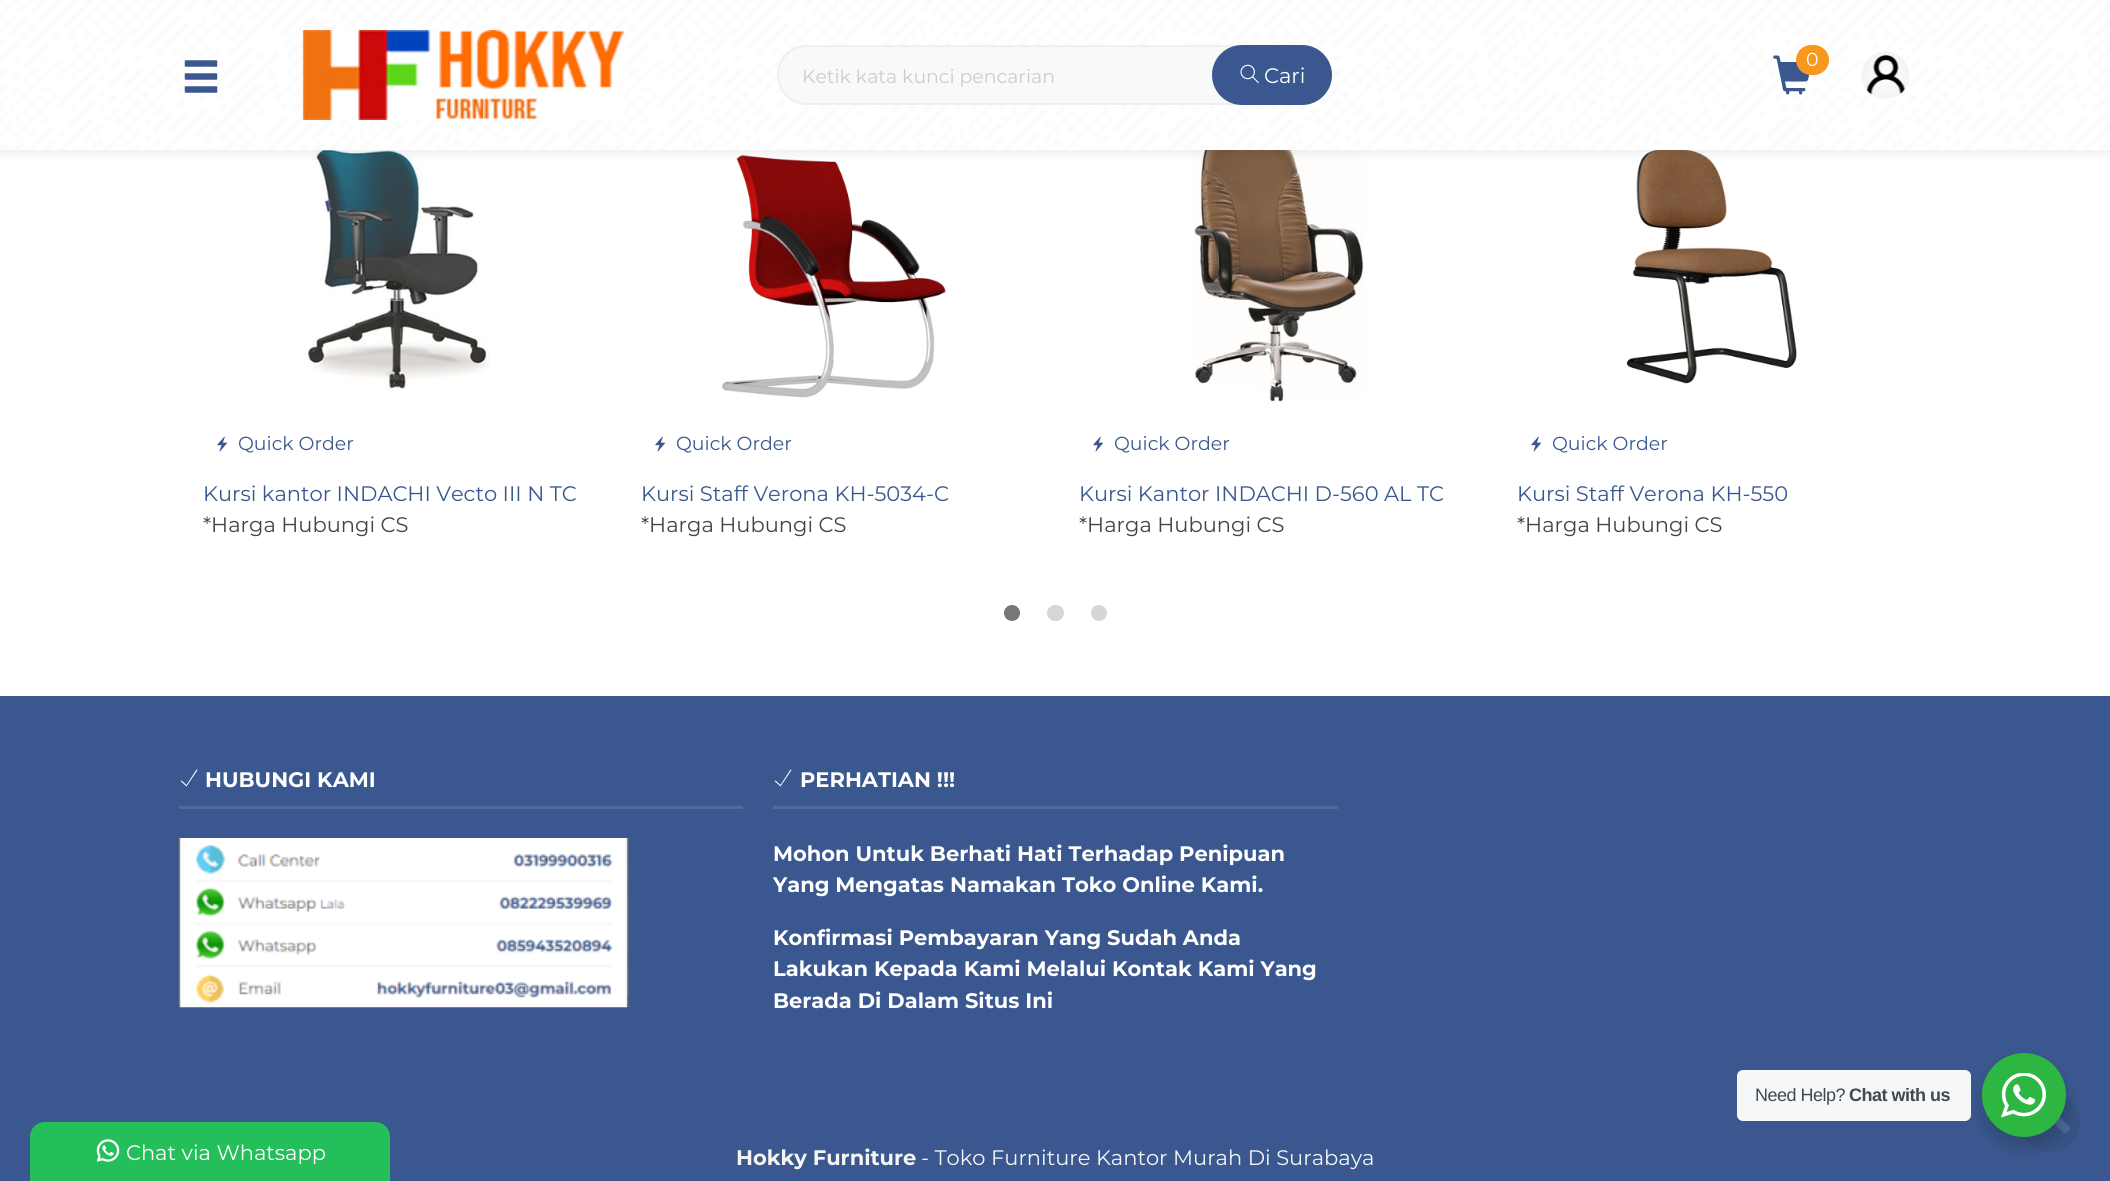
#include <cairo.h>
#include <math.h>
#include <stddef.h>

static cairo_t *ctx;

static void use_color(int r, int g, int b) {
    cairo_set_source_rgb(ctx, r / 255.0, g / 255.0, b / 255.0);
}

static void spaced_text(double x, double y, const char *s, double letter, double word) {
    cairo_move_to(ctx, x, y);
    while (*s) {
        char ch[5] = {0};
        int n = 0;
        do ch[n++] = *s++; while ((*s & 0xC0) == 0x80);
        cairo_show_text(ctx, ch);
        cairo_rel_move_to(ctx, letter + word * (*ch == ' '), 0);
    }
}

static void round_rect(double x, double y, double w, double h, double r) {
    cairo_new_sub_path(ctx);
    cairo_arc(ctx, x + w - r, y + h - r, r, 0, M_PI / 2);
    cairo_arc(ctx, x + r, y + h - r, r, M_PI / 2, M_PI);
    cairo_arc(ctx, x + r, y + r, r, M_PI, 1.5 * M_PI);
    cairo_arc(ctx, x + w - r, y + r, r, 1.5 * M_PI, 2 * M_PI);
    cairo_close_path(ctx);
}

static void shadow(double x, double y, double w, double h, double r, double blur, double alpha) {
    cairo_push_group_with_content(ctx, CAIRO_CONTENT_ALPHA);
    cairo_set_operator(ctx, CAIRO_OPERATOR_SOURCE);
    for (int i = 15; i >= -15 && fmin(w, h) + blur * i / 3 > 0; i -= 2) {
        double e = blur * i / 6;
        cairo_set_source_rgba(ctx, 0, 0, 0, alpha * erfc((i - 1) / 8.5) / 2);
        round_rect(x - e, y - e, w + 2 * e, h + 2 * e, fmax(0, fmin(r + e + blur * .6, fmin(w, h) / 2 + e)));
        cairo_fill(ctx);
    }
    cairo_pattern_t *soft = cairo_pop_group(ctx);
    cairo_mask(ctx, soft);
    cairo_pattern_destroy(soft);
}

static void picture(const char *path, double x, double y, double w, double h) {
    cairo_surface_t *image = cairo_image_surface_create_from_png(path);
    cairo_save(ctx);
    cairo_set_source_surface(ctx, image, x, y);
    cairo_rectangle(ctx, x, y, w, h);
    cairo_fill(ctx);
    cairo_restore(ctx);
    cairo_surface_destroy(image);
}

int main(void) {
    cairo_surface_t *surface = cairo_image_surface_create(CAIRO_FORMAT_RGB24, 2110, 1181);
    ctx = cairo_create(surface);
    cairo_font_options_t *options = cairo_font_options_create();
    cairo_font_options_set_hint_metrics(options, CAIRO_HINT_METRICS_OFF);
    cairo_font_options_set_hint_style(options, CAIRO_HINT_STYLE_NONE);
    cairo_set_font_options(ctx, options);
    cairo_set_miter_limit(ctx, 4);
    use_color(255, 255, 255);
    cairo_paint(ctx);
    picture("img7.png", 307, 150, 183, 240);
    picture("img9.png", 722, 155, 224, 243);
    picture("img10.png", 1193, 150, 171, 252);
    picture("img11.png", 1626, 150, 171, 234);
    use_color(0, 0, 0);
    shadow(0, -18, 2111, 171, 0, 6, 0.08);
    picture("img1.png", 0, 0, 2110, 150);
    picture("img2.png", 184, 60, 34, 33);
    picture("img3.png", 302, 30, 323, 90);
    picture("img4.png", 1773, 55, 37, 40);
    use_color(248, 153, 29);
    round_rect(1796, 45, 33, 30, 15);
    cairo_fill(ctx);
    cairo_select_font_face(ctx, "Montserrat", CAIRO_FONT_SLANT_NORMAL, CAIRO_FONT_WEIGHT_NORMAL);
    cairo_set_font_size(ctx, 18.9);
    use_color(255, 255, 255);
    cairo_move_to(ctx, 1806, 66);
    cairo_show_text(ctx, "0");
    cairo_new_path(ctx);
    cairo_arc(ctx, 1886, 75, 24, 0, 2 * M_PI);
    cairo_fill(ctx);
    picture("img5.png", 1861, 51, 49, 48);
    use_color(249, 249, 249);
    round_rect(778, 46, 553, 58, 29);
    cairo_fill_preserve(ctx);
    use_color(239, 239, 239);
    cairo_stroke(ctx);
    use_color(204, 204, 204);
    cairo_move_to(ctx, 802, 83);
    cairo_show_text(ctx, "Ketik kata kunci pencarian");
    use_color(58, 88, 143);
    round_rect(1212, 45, 120, 60, 30);
    cairo_fill(ctx);
    picture("img6.png", 1240, 64, 19, 20);
    cairo_set_font_size(ctx, 21);
    use_color(255, 255, 255);
    cairo_move_to(ctx, 1264, 83);
    cairo_show_text(ctx, "Cari");
    picture("img8.png", 217, 436, 10, 16);
    cairo_set_font_size(ctx, 18.9);
    use_color(58, 88, 143);
    cairo_move_to(ctx, 238, 450);
    cairo_show_text(ctx, "Quick Order");
    cairo_set_font_size(ctx, 21);
    cairo_move_to(ctx, 203, 501);
    cairo_show_text(ctx, "Kursi kantor INDACHI Vecto III N TC");
    use_color(68, 68, 68);
    cairo_move_to(ctx, 203, 532);
    cairo_show_text(ctx, "*Harga Hubungi CS");
    picture("img8.png", 655, 436, 10, 16);
    cairo_set_font_size(ctx, 18.9);
    use_color(58, 88, 143);
    cairo_move_to(ctx, 676, 450);
    cairo_show_text(ctx, "Quick Order");
    cairo_set_font_size(ctx, 21);
    cairo_move_to(ctx, 641, 501);
    cairo_show_text(ctx, "Kursi Staff Verona KH-5034-C");
    use_color(68, 68, 68);
    cairo_move_to(ctx, 641, 532);
    cairo_show_text(ctx, "*Harga Hubungi CS");
    picture("img8.png", 1093, 436, 10, 16);
    cairo_set_font_size(ctx, 18.9);
    use_color(58, 88, 143);
    cairo_move_to(ctx, 1114, 450);
    cairo_show_text(ctx, "Quick Order");
    cairo_set_font_size(ctx, 21);
    cairo_move_to(ctx, 1079, 501);
    cairo_show_text(ctx, "Kursi Kantor INDACHI D-560 AL TC");
    use_color(68, 68, 68);
    cairo_move_to(ctx, 1079, 532);
    cairo_show_text(ctx, "*Harga Hubungi CS");
    picture("img8.png", 1531, 436, 10, 16);
    cairo_set_font_size(ctx, 18.9);
    use_color(58, 88, 143);
    cairo_move_to(ctx, 1552, 450);
    cairo_show_text(ctx, "Quick Order");
    cairo_set_font_size(ctx, 21);
    cairo_move_to(ctx, 1517, 501);
    cairo_show_text(ctx, "Kursi Staff Verona KH-550");
    use_color(68, 68, 68);
    cairo_move_to(ctx, 1517, 532);
    cairo_show_text(ctx, "*Harga Hubungi CS");
    use_color(119, 119, 119);
    cairo_new_path(ctx);
    cairo_arc(ctx, 1012, 613, 9.5, 0, 2 * M_PI);
    cairo_fill_preserve(ctx);
    use_color(255, 255, 255);
    cairo_set_line_width(ctx, 3);
    cairo_stroke(ctx);
    use_color(214, 214, 214);
    round_rect(1045.5, 603.5, 20, 19, 9.5);
    cairo_fill_preserve(ctx);
    use_color(255, 255, 255);
    cairo_stroke(ctx);
    use_color(214, 214, 214);
    cairo_arc(ctx, 1099, 613, 9.5, 0, 2 * M_PI);
    cairo_fill_preserve(ctx);
    use_color(255, 255, 255);
    cairo_stroke(ctx);
    use_color(58, 88, 143);
    cairo_rectangle(ctx, 0, 696, 2110, 485);
    cairo_fill(ctx);
    use_color(80, 106, 155);
    cairo_rectangle(ctx, 179, 806, 564, 3);
    cairo_fill(ctx);
    use_color(255, 255, 255);
    cairo_new_path(ctx);
    cairo_move_to(ctx, 197.5, 770);
    cairo_line_to(ctx, 186.5, 786.5);
    cairo_line_to(ctx, 180.5, 781);
    cairo_line_to(ctx, 181.5, 780.5);
    cairo_line_to(ctx, 186.5, 785);
    cairo_line_to(ctx, 196.5, 769.5);
    cairo_close_path(ctx);
    cairo_fill(ctx);
    cairo_select_font_face(ctx, "Montserrat", CAIRO_FONT_SLANT_NORMAL, CAIRO_FONT_WEIGHT_BOLD);
    cairo_move_to(ctx, 205, 787);
    cairo_show_text(ctx, "HUBUNGI KAMI");
    picture("img12.png", 178, 838, 451, 170);
    use_color(80, 106, 155);
    cairo_rectangle(ctx, 773, 806, 565, 3);
    cairo_fill(ctx);
    use_color(255, 255, 255);
    cairo_new_path(ctx);
    cairo_move_to(ctx, 791.5, 770);
    cairo_line_to(ctx, 780.5, 786.5);
    cairo_line_to(ctx, 774.5, 781);
    cairo_line_to(ctx, 775.5, 780.5);
    cairo_line_to(ctx, 780.5, 785);
    cairo_line_to(ctx, 790.5, 769.5);
    cairo_close_path(ctx);
    cairo_fill(ctx);
    cairo_move_to(ctx, 800, 787);
    cairo_show_text(ctx, "PERHATIAN !!!");
    cairo_move_to(ctx, 773, 861);
    cairo_show_text(ctx, "Mohon Untuk Berhati Hati Terhadap Penipuan");
    cairo_move_to(ctx, 773, 892);
    cairo_show_text(ctx, "Yang Mengatas Namakan Toko Online Kami.");
    cairo_move_to(ctx, 773, 945);
    cairo_show_text(ctx, "Konfirmasi Pembayaran Yang Sudah Anda");
    cairo_move_to(ctx, 773, 976);
    cairo_show_text(ctx, "Lakukan Kepada Kami Melalui Kontak Kami Yang");
    cairo_move_to(ctx, 773, 1008);
    cairo_show_text(ctx, "Berada Di Dalam Situs Ini");
    use_color(245, 245, 245);
    cairo_move_to(ctx, 736, 1165);
    cairo_show_text(ctx, "Hokky Furniture");
    cairo_select_font_face(ctx, "Montserrat", CAIRO_FONT_SLANT_NORMAL, CAIRO_FONT_WEIGHT_NORMAL);
    cairo_move_to(ctx, 921, 1165);
    cairo_show_text(ctx, "- Toko Furniture Kantor Murah Di Surabaya");
    picture("img14.png", 2024, 1096, 57, 56);
    use_color(0, 0, 0);
    shadow(1979, 1059, 90, 90, 45, 6, 0.14);
    use_color(245, 247, 249);
    round_rect(1737, 1070, 234, 51, 6);
    cairo_fill(ctx);
    cairo_select_font_face(ctx, "Liberation Sans", CAIRO_FONT_SLANT_NORMAL, CAIRO_FONT_WEIGHT_NORMAL);
    cairo_set_font_size(ctx, 18);
    use_color(67, 71, 78);
    spaced_text(1755, 1101, "Need Help?", -0.5, 0);
    cairo_select_font_face(ctx, "Liberation Sans", CAIRO_FONT_SLANT_NORMAL, CAIRO_FONT_WEIGHT_BOLD);
    spaced_text(1849, 1101, "Chat with us", -0.5, 0);
    use_color(45, 183, 66);
    cairo_new_path(ctx);
    cairo_arc(ctx, 2024, 1095, 42, 0, 2 * M_PI);
    cairo_fill(ctx);
    picture("img13.png", 2001, 1073, 45, 45);
    use_color(36, 190, 91);
    cairo_new_path(ctx);
    cairo_move_to(ctx, 45, 1122);
    cairo_line_to(ctx, 375, 1122);
    cairo_curve_to(ctx, 383.5, 1122, 390, 1128.5, 390, 1137);
    cairo_line_to(ctx, 390, 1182);
    cairo_line_to(ctx, 30, 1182);
    cairo_line_to(ctx, 30, 1137);
    cairo_curve_to(ctx, 30, 1128.5, 36.5, 1122, 45, 1122);
    cairo_close_path(ctx);
    cairo_fill(ctx);
    picture("img15.png", 96, 1139, 24, 23);
    cairo_select_font_face(ctx, "Montserrat", CAIRO_FONT_SLANT_NORMAL, CAIRO_FONT_WEIGHT_NORMAL);
    cairo_set_font_size(ctx, 21);
    use_color(255, 255, 255);
    cairo_move_to(ctx, 126, 1160);
    cairo_show_text(ctx, "Chat via Whatsapp");
    cairo_surface_write_to_png(surface, "result.png");
    cairo_font_options_destroy(options);
    cairo_destroy(ctx);
    cairo_surface_destroy(surface);
    return 0;
}
